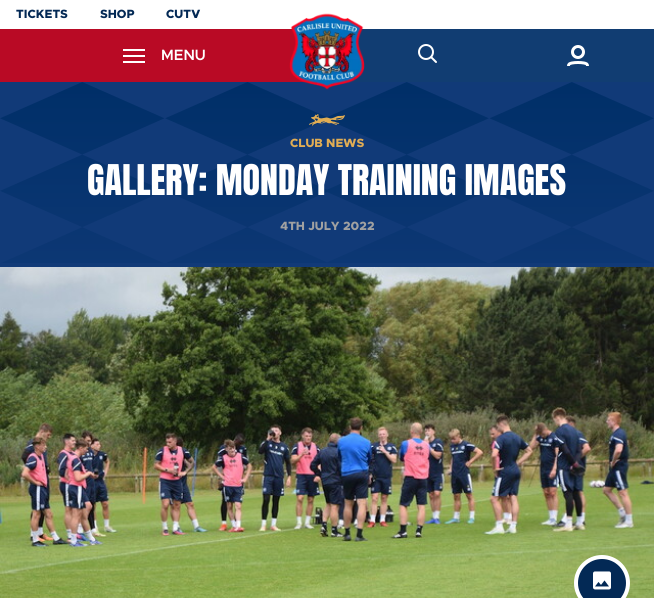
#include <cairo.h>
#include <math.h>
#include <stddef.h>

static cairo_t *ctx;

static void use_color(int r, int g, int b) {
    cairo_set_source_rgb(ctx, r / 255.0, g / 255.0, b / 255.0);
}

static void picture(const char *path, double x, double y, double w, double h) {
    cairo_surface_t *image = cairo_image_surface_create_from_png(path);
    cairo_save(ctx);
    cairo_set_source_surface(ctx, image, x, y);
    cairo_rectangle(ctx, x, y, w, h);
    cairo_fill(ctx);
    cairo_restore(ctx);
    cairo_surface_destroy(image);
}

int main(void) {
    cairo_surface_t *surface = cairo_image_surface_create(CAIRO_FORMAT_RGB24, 654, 598);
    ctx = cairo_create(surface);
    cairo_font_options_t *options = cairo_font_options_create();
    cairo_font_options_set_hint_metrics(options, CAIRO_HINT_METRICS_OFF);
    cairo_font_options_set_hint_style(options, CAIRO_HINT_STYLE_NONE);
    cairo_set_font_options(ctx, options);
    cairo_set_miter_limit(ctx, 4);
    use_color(255, 255, 255);
    cairo_paint(ctx);
    cairo_select_font_face(ctx, "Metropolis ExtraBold", CAIRO_FONT_SLANT_NORMAL, CAIRO_FONT_WEIGHT_NORMAL);
    cairo_set_font_size(ctx, 12);
    use_color(3, 41, 85);
    cairo_move_to(ctx, 16, 18);
    cairo_show_text(ctx, "TICKETS");
    cairo_move_to(ctx, 100, 18);
    cairo_show_text(ctx, "SHOP");
    cairo_move_to(ctx, 166, 18);
    cairo_show_text(ctx, "CUTV");
    use_color(185, 10, 37);
    cairo_rectangle(ctx, 0, 29, 307, 53);
    cairo_fill(ctx);
    use_color(17, 61, 114);
    cairo_rectangle(ctx, 347, 29, 307, 53);
    cairo_fill(ctx);
    use_color(17, 58, 120);
    cairo_rectangle(ctx, 0, 82, 654, 185);
    cairo_fill(ctx);
    picture("img3.png", 0, 82, 654, 181);
    picture("img1.png", 289, 13, 76, 77);
    use_color(255, 255, 255);
    cairo_rectangle(ctx, 123, 55, 22, 2);
    cairo_fill(ctx);
    cairo_rectangle(ctx, 123, 49, 22, 2);
    cairo_fill(ctx);
    cairo_rectangle(ctx, 123, 61, 22, 2);
    cairo_fill(ctx);
    cairo_select_font_face(ctx, "Metropolis SemiBold", CAIRO_FONT_SLANT_NORMAL, CAIRO_FONT_WEIGHT_NORMAL);
    cairo_set_font_size(ctx, 15);
    cairo_move_to(ctx, 161, 60);
    cairo_show_text(ctx, "MENU");
    cairo_new_path(ctx);
    cairo_arc(ctx, 426, 52, 7, 0, 2 * M_PI);
    cairo_stroke(ctx);
    cairo_new_path(ctx);
    cairo_move_to(ctx, 431.5, 57.5);
    cairo_line_to(ctx, 436, 62);
    cairo_set_line_cap(ctx, CAIRO_LINE_CAP_ROUND);
    cairo_stroke(ctx);
    picture("img2.png", 567, 45, 22, 21);
    picture("img4.png", 309, 114, 36, 12);
    cairo_select_font_face(ctx, "Metropolis ExtraBold", CAIRO_FONT_SLANT_NORMAL, CAIRO_FONT_WEIGHT_NORMAL);
    cairo_set_font_size(ctx, 12);
    use_color(225, 173, 84);
    cairo_move_to(ctx, 290, 147);
    cairo_show_text(ctx, "CLUB NEWS");
    cairo_select_font_face(ctx, "Anton", CAIRO_FONT_SLANT_NORMAL, CAIRO_FONT_WEIGHT_NORMAL);
    cairo_set_font_size(ctx, 36);
    use_color(255, 255, 255);
    cairo_move_to(ctx, 87, 195);
    cairo_show_text(ctx, "GALLERY: MONDAY TRAINING IMAGES");
    cairo_select_font_face(ctx, "Metropolis ExtraBold", CAIRO_FONT_SLANT_NORMAL, CAIRO_FONT_WEIGHT_NORMAL);
    cairo_set_font_size(ctx, 12);
    use_color(161, 161, 161);
    cairo_move_to(ctx, 280, 230);
    cairo_show_text(ctx, "4TH JULY 2022");
    picture("img5.png", 0, 267, 654, 331);
    use_color(3, 41, 85);
    cairo_arc(ctx, 602, 583, 26, 0, 2 * M_PI);
    cairo_fill_preserve(ctx);
    use_color(255, 255, 255);
    cairo_set_line_width(ctx, 4);
    cairo_set_line_cap(ctx, CAIRO_LINE_CAP_BUTT);
    cairo_stroke(ctx);
    picture("img6.png", 593, 571, 18, 19);
    cairo_surface_write_to_png(surface, "result.png");
    cairo_font_options_destroy(options);
    cairo_destroy(ctx);
    cairo_surface_destroy(surface);
    return 0;
}
